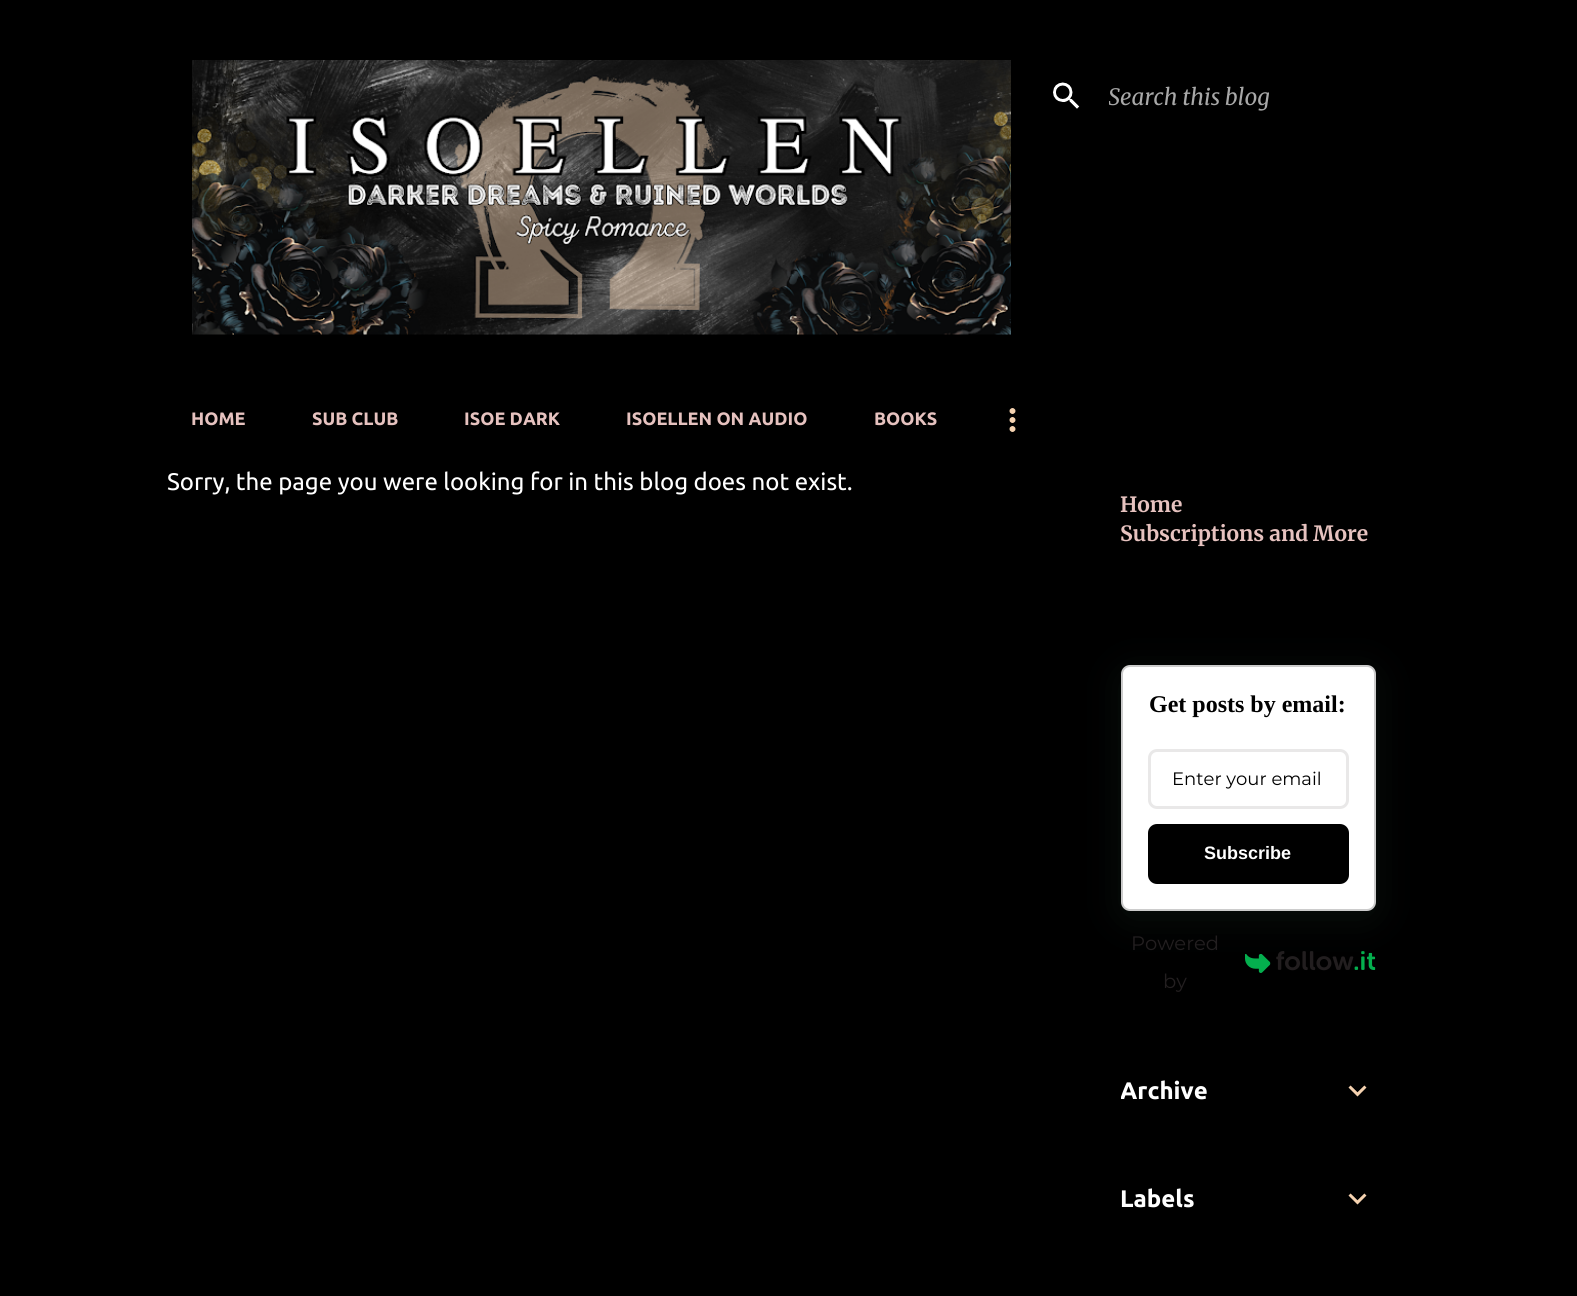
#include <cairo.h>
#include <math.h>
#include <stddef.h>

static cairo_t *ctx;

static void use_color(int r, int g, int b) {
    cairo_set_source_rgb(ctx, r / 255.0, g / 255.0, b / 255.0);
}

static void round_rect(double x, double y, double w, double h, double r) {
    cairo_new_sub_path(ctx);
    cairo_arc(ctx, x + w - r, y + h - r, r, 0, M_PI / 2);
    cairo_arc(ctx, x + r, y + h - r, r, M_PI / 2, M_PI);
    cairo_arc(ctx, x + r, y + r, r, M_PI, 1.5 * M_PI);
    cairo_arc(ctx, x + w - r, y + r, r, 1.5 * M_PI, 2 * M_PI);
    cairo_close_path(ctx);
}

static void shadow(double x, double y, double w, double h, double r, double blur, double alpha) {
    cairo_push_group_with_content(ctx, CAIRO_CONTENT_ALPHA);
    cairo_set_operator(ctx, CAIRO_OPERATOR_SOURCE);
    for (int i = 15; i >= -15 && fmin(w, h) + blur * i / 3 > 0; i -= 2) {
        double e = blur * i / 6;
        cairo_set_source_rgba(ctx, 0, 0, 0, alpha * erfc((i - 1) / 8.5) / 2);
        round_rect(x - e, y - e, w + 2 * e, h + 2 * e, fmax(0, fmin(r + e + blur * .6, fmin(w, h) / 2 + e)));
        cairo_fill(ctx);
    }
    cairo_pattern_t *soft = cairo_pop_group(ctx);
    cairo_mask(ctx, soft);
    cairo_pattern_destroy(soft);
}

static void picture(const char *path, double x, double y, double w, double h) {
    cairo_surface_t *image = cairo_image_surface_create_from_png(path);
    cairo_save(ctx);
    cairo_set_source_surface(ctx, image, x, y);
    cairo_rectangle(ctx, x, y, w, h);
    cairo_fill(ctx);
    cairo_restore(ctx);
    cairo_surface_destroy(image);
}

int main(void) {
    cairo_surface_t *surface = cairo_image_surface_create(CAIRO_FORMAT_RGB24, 1577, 1296);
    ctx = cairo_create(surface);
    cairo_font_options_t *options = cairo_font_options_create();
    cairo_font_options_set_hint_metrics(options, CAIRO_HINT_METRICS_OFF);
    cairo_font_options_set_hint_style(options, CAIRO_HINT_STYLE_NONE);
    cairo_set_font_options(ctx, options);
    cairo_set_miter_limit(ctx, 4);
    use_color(0, 0, 0);
    cairo_paint(ctx);
    picture("img1.png", 192, 60, 819, 275);
    picture("img2.png", 1053, 82, 27, 27);
    cairo_save(ctx);
    cairo_rectangle(ctx, 1109, 83, 291, 28);
    cairo_clip(ctx);
    cairo_select_font_face(ctx, "Merriweather", CAIRO_FONT_SLANT_ITALIC, CAIRO_FONT_WEIGHT_NORMAL);
    cairo_set_font_size(ctx, 22.5);
    use_color(168, 168, 168);
    cairo_move_to(ctx, 1108, 105);
    cairo_show_text(ctx, "Search this blog");
    cairo_restore(ctx);
    cairo_select_font_face(ctx, "Ubuntu", CAIRO_FONT_SLANT_NORMAL, CAIRO_FONT_WEIGHT_BOLD);
    cairo_set_font_size(ctx, 18);
    use_color(230, 194, 191);
    cairo_move_to(ctx, 191, 425);
    cairo_show_text(ctx, "HOME");
    cairo_move_to(ctx, 312, 425);
    cairo_show_text(ctx, "SUB CLUB");
    cairo_move_to(ctx, 464, 425);
    cairo_show_text(ctx, "ISOE DARK");
    cairo_move_to(ctx, 626, 425);
    cairo_show_text(ctx, "ISOELLEN ON AUDIO");
    cairo_move_to(ctx, 874, 425);
    cairo_show_text(ctx, "BOOKS");
    picture("img3.png", 1009, 408, 7, 24);
    cairo_select_font_face(ctx, "Ubuntu", CAIRO_FONT_SLANT_NORMAL, CAIRO_FONT_WEIGHT_NORMAL);
    cairo_set_font_size(ctx, 24);
    use_color(255, 255, 255);
    cairo_move_to(ctx, 167, 490);
    cairo_show_text(ctx, "Sorry, the page you were looking for in this blog does not exist.");
    cairo_select_font_face(ctx, "Merriweather", CAIRO_FONT_SLANT_NORMAL, CAIRO_FONT_WEIGHT_BOLD);
    cairo_set_font_size(ctx, 21);
    use_color(230, 194, 191);
    cairo_move_to(ctx, 1120, 512);
    cairo_show_text(ctx, "Home");
    cairo_move_to(ctx, 1120, 541);
    cairo_show_text(ctx, "Subscriptions and More");
    picture("img4.png", 1245, 951, 131, 22);
    use_color(34, 60, 47);
    shadow(1121, 672, 255, 246, 9, 19, 0.25);
    use_color(255, 255, 255);
    round_rect(1122, 666, 253, 244, 8);
    cairo_fill_preserve(ctx);
    use_color(204, 204, 204);
    cairo_stroke(ctx);
    cairo_select_font_face(ctx, "Liberation Serif", CAIRO_FONT_SLANT_NORMAL, CAIRO_FONT_WEIGHT_BOLD);
    cairo_set_font_size(ctx, 24);
    use_color(0, 0, 0);
    cairo_move_to(ctx, 1149, 712);
    cairo_show_text(ctx, "Get posts by email:");
    round_rect(1149.5, 750.5, 198, 57, 7.5);
    use_color(233, 232, 232);
    cairo_set_line_width(ctx, 3);
    cairo_stroke(ctx);
    cairo_select_font_face(ctx, "Montserrat", CAIRO_FONT_SLANT_NORMAL, CAIRO_FONT_WEIGHT_NORMAL);
    cairo_set_font_size(ctx, 18);
    use_color(0, 0, 0);
    cairo_move_to(ctx, 1172, 785);
    cairo_show_text(ctx, "Enter your email");
    round_rect(1148, 824, 201, 60, 9);
    cairo_fill(ctx);
    cairo_select_font_face(ctx, "Liberation Sans", CAIRO_FONT_SLANT_NORMAL, CAIRO_FONT_WEIGHT_BOLD);
    use_color(255, 255, 255);
    cairo_move_to(ctx, 1204, 859);
    cairo_show_text(ctx, "Subscribe");
    cairo_select_font_face(ctx, "Montserrat", CAIRO_FONT_SLANT_NORMAL, CAIRO_FONT_WEIGHT_NORMAL);
    cairo_set_font_size(ctx, 19.5);
    use_color(35, 31, 32);
    cairo_move_to(ctx, 1131, 950);
    cairo_show_text(ctx, "Powered");
    cairo_move_to(ctx, 1163, 988);
    cairo_show_text(ctx, "by");
    cairo_save(ctx);
    cairo_rectangle(ctx, 1121, 1077, 219, 27);
    cairo_clip(ctx);
    cairo_select_font_face(ctx, "Ubuntu", CAIRO_FONT_SLANT_NORMAL, CAIRO_FONT_WEIGHT_BOLD);
    cairo_set_font_size(ctx, 24);
    use_color(255, 255, 255);
    cairo_move_to(ctx, 1120, 1099);
    cairo_show_text(ctx, "Archive");
    cairo_restore(ctx);
    picture("img5.png", 1348, 1085, 19, 12);
    cairo_select_font_face(ctx, "Ubuntu", CAIRO_FONT_SLANT_NORMAL, CAIRO_FONT_WEIGHT_BOLD);
    cairo_set_font_size(ctx, 24);
    use_color(255, 255, 255);
    cairo_move_to(ctx, 1120, 1207);
    cairo_show_text(ctx, "Labels");
    picture("img5.png", 1348, 1193, 19, 12);
    cairo_surface_write_to_png(surface, "result.png");
    cairo_font_options_destroy(options);
    cairo_destroy(ctx);
    cairo_surface_destroy(surface);
    return 0;
}
